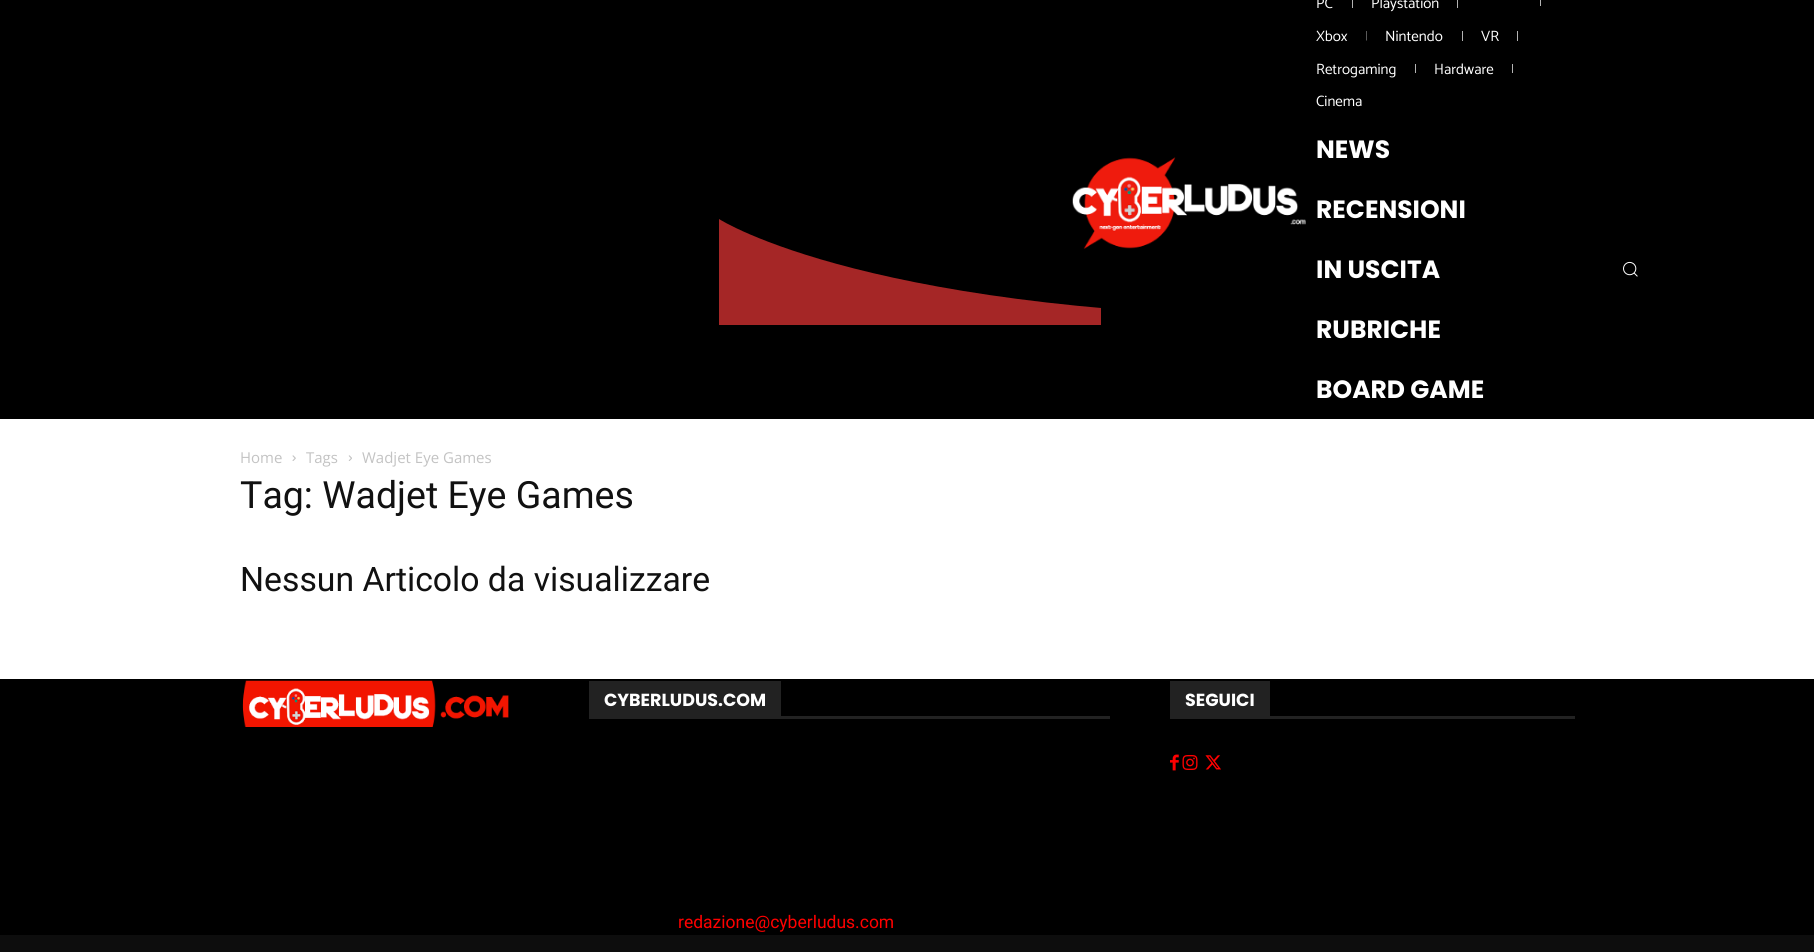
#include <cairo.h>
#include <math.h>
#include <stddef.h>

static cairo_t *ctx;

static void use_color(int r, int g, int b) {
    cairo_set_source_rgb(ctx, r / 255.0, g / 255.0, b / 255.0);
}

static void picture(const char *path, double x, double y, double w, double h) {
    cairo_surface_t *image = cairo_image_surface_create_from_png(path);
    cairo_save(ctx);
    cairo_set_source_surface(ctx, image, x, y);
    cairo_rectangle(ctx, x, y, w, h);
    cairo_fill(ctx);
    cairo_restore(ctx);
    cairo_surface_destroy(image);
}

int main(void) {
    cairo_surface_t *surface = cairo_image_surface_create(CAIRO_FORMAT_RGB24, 1814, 952);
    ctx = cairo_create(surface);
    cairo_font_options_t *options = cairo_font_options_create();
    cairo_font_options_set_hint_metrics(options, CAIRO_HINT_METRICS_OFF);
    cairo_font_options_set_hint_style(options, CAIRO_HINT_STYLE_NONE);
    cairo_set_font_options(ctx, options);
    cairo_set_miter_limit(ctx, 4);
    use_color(0, 0, 0);
    cairo_paint(ctx);
    cairo_save(ctx);
    cairo_rectangle(ctx, 719, 75, 382, 250);
    cairo_clip(ctx);
    use_color(165, 38, 38);
    cairo_new_path(ctx);
    cairo_move_to(ctx, 719, 512);
    cairo_line_to(ctx, 719, 219);
    cairo_curve_to(ctx, 719, 219, 871, 318, 1344, 318);
    cairo_curve_to(ctx, 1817, 318, 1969, 219, 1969, 219);
    cairo_line_to(ctx, 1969, 512);
    cairo_close_path(ctx);
    cairo_fill(ctx);
    cairo_restore(ctx);
    picture("img1.png", 1072, 157, 234, 92);
    cairo_select_font_face(ctx, "Catamaran", CAIRO_FONT_SLANT_NORMAL, CAIRO_FONT_WEIGHT_NORMAL);
    cairo_set_font_size(ctx, 15);
    use_color(255, 255, 255);
    cairo_move_to(ctx, 1316, 8);
    cairo_show_text(ctx, "PC");
    use_color(179, 179, 179);
    cairo_rectangle(ctx, 1352, 0, 1, 8);
    cairo_fill(ctx);
    use_color(255, 255, 255);
    cairo_move_to(ctx, 1371, 8);
    cairo_show_text(ctx, "Playstation");
    use_color(179, 179, 179);
    cairo_rectangle(ctx, 1457, 0, 1, 8);
    cairo_fill(ctx);
    use_color(255, 255, 255);
    cairo_move_to(ctx, 1316, 41);
    cairo_show_text(ctx, "Xbox");
    use_color(179, 179, 179);
    cairo_new_path(ctx);
    cairo_move_to(ctx, 1366, 31);
    cairo_line_to(ctx, 1366.5, 31);
    cairo_line_to(ctx, 1366.5, 40.5);
    cairo_line_to(ctx, 1366, 40.5);
    cairo_close_path(ctx);
    cairo_fill(ctx);
    use_color(255, 255, 255);
    cairo_move_to(ctx, 1385, 41);
    cairo_show_text(ctx, "Nintendo");
    use_color(179, 179, 179);
    cairo_rectangle(ctx, 1462, 31, 1, 10);
    cairo_fill(ctx);
    use_color(255, 255, 255);
    cairo_move_to(ctx, 1481, 41);
    cairo_show_text(ctx, "VR");
    use_color(179, 179, 179);
    cairo_rectangle(ctx, 1517, 31, 1, 10);
    cairo_fill(ctx);
    use_color(255, 255, 255);
    cairo_move_to(ctx, 1316, 74);
    cairo_show_text(ctx, "Retrogaming");
    use_color(179, 179, 179);
    cairo_rectangle(ctx, 1415, 64, 1, 9);
    cairo_fill(ctx);
    use_color(255, 255, 255);
    cairo_move_to(ctx, 1434, 74);
    cairo_show_text(ctx, "Hardware");
    use_color(179, 179, 179);
    cairo_rectangle(ctx, 1512, 64, 1, 9);
    cairo_fill(ctx);
    use_color(255, 255, 255);
    cairo_move_to(ctx, 1316, 106);
    cairo_show_text(ctx, "Cinema");
    use_color(179, 179, 179);
    cairo_rectangle(ctx, 1540, 0, 1, 6);
    cairo_fill(ctx);
    cairo_select_font_face(ctx, "Poppins", CAIRO_FONT_SLANT_NORMAL, CAIRO_FONT_WEIGHT_BOLD);
    cairo_set_font_size(ctx, 25);
    use_color(255, 255, 255);
    cairo_move_to(ctx, 1316, 158);
    cairo_show_text(ctx, "NEWS");
    cairo_move_to(ctx, 1316, 218);
    cairo_show_text(ctx, "RECENSIONI");
    cairo_move_to(ctx, 1316, 278);
    cairo_show_text(ctx, "IN USCITA");
    cairo_move_to(ctx, 1316, 338);
    cairo_show_text(ctx, "RUBRICHE");
    cairo_move_to(ctx, 1316, 398);
    cairo_show_text(ctx, "BOARD GAME");
    picture("img2.png", 1623, 261, 15, 16);
    cairo_rectangle(ctx, 0, 419, 1814, 260);
    cairo_fill(ctx);
    cairo_select_font_face(ctx, "Open Sans", CAIRO_FONT_SLANT_NORMAL, CAIRO_FONT_WEIGHT_NORMAL);
    cairo_set_font_size(ctx, 15);
    use_color(195, 195, 195);
    cairo_move_to(ctx, 240, 463);
    cairo_show_text(ctx, "Home");
    picture("img3.png", 292, 455, 4, 6);
    cairo_move_to(ctx, 306, 463);
    cairo_show_text(ctx, "Tags");
    picture("img4.png", 348, 455, 4, 6);
    cairo_move_to(ctx, 362, 463);
    cairo_show_text(ctx, "Wadjet Eye Games");
    cairo_select_font_face(ctx, "Roboto", CAIRO_FONT_SLANT_NORMAL, CAIRO_FONT_WEIGHT_NORMAL);
    cairo_set_font_size(ctx, 37.5);
    use_color(17, 17, 17);
    cairo_move_to(ctx, 240, 508);
    cairo_show_text(ctx, "Tag: Wadjet Eye Games");
    cairo_set_font_size(ctx, 33.75);
    cairo_move_to(ctx, 240, 591);
    cairo_show_text(ctx, "Nessun Articolo da visualizzare");
    picture("img5.png", 242, 680, 267, 47);
    use_color(34, 34, 34);
    cairo_rectangle(ctx, 589, 716, 521, 3);
    cairo_fill(ctx);
    cairo_rectangle(ctx, 589, 681, 192, 35);
    cairo_fill(ctx);
    cairo_select_font_face(ctx, "Poppins", CAIRO_FONT_SLANT_NORMAL, CAIRO_FONT_WEIGHT_BOLD);
    cairo_set_font_size(ctx, 17.5);
    use_color(255, 255, 255);
    cairo_move_to(ctx, 604, 706);
    cairo_show_text(ctx, "CYBERLUDUS.COM");
    cairo_select_font_face(ctx, "Roboto", CAIRO_FONT_SLANT_NORMAL, CAIRO_FONT_WEIGHT_NORMAL);
    use_color(255, 0, 0);
    cairo_move_to(ctx, 678, 928);
    cairo_show_text(ctx, "redazione@cyberludus.com");
    use_color(34, 34, 34);
    cairo_rectangle(ctx, 1170, 716, 405, 3);
    cairo_fill(ctx);
    cairo_rectangle(ctx, 1170, 681, 100, 35);
    cairo_fill(ctx);
    cairo_select_font_face(ctx, "Poppins", CAIRO_FONT_SLANT_NORMAL, CAIRO_FONT_WEIGHT_BOLD);
    use_color(255, 255, 255);
    cairo_move_to(ctx, 1185, 706);
    cairo_show_text(ctx, "SEGUICI");
    picture("img6.png", 1170, 754, 9, 17);
    picture("img7.png", 1182, 755, 16, 15);
    picture("img8.png", 1205, 755, 16, 15);
    use_color(13, 13, 13);
    cairo_rectangle(ctx, 0, 935, 1814, 17);
    cairo_fill(ctx);
    cairo_surface_write_to_png(surface, "result.png");
    cairo_font_options_destroy(options);
    cairo_destroy(ctx);
    cairo_surface_destroy(surface);
    return 0;
}
